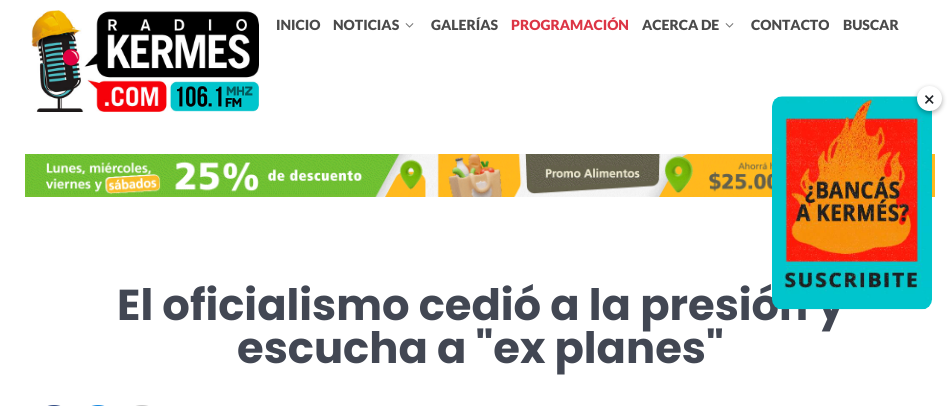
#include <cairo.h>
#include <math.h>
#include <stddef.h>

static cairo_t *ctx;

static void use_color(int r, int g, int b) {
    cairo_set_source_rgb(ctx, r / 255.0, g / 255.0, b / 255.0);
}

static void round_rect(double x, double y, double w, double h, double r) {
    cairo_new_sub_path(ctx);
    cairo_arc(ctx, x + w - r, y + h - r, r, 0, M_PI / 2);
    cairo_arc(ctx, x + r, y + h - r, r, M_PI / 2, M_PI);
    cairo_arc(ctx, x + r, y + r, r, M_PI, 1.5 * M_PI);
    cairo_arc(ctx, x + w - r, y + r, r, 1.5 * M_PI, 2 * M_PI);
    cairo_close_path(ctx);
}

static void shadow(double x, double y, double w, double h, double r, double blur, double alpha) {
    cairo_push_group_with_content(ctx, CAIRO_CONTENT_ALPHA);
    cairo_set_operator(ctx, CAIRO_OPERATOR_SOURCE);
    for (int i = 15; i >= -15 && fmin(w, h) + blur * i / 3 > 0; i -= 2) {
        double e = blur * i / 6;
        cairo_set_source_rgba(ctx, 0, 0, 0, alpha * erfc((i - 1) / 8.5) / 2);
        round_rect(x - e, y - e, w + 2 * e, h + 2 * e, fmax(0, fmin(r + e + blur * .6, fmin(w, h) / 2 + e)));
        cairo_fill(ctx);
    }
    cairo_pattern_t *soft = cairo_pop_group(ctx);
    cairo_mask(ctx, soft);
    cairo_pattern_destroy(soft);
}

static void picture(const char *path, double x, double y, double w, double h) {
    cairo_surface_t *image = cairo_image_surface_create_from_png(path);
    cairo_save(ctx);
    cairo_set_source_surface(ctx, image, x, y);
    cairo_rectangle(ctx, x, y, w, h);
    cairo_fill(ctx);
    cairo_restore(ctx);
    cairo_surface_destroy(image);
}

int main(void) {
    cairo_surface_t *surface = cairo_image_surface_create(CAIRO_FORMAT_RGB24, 952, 406);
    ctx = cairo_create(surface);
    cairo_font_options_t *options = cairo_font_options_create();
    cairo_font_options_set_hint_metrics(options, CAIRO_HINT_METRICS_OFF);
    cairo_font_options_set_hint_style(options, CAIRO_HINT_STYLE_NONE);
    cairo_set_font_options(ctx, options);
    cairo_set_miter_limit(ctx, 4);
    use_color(255, 255, 255);
    cairo_paint(ctx);
    picture("img1.png", 31, 10, 228, 102);
    cairo_select_font_face(ctx, "Lato Black", CAIRO_FONT_SLANT_NORMAL, CAIRO_FONT_WEIGHT_NORMAL);
    cairo_set_font_size(ctx, 14);
    use_color(74, 74, 74);
    cairo_move_to(ctx, 276, 30);
    cairo_show_text(ctx, "INICIO");
    cairo_move_to(ctx, 333, 30);
    cairo_show_text(ctx, "NOTICIAS");
    picture("img2.png", 405, 23, 9, 5);
    cairo_move_to(ctx, 431, 30);
    cairo_show_text(ctx, "GALERÍAS");
    use_color(220, 53, 69);
    cairo_move_to(ctx, 511, 30);
    cairo_show_text(ctx, "PROGRAMACIÓN");
    use_color(74, 74, 74);
    cairo_move_to(ctx, 642, 30);
    cairo_show_text(ctx, "ACERCA DE");
    picture("img2.png", 725, 23, 9, 5);
    cairo_move_to(ctx, 751, 30);
    cairo_show_text(ctx, "CONTACTO");
    cairo_move_to(ctx, 843, 30);
    cairo_show_text(ctx, "BUSCAR");
    picture("img3.png", 25, 154, 910, 43);
    cairo_select_font_face(ctx, "Poppins", CAIRO_FONT_SLANT_NORMAL, CAIRO_FONT_WEIGHT_BOLD);
    cairo_set_font_size(ctx, 43.25);
    use_color(66, 71, 83);
    cairo_move_to(ctx, 117, 320);
    cairo_show_text(ctx, "El oficialismo cedió a la presión y");
    cairo_move_to(ctx, 237, 363);
    cairo_show_text(ctx, "escucha a \"ex planes\"");
    cairo_new_path(ctx);
    cairo_move_to(ctx, 54, 405.5);
    cairo_curve_to(ctx, 65, 405.5, 73.5, 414, 73.5, 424);
    cairo_curve_to(ctx, 73.5, 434, 65, 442.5, 54, 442.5);
    cairo_curve_to(ctx, 43, 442.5, 34.5, 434, 34.5, 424);
    cairo_curve_to(ctx, 34.5, 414, 43, 405.5, 54, 405.5);
    cairo_close_path(ctx);
    use_color(52, 78, 134);
    cairo_set_line_width(ctx, 1);
    cairo_stroke(ctx);
    cairo_new_path(ctx);
    cairo_move_to(ctx, 98, 405.5);
    cairo_curve_to(ctx, 109, 405.5, 117.5, 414, 117.5, 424);
    cairo_curve_to(ctx, 117.5, 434, 109, 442.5, 98, 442.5);
    cairo_curve_to(ctx, 87, 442.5, 78.5, 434, 78.5, 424);
    cairo_curve_to(ctx, 78.5, 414, 87, 405.5, 98, 405.5);
    cairo_close_path(ctx);
    use_color(22, 137, 224);
    cairo_stroke(ctx);
    cairo_new_path(ctx);
    cairo_move_to(ctx, 142, 405.5);
    cairo_curve_to(ctx, 153, 405.5, 161.5, 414, 161.5, 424);
    cairo_curve_to(ctx, 161.5, 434, 153, 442.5, 142, 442.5);
    cairo_curve_to(ctx, 131, 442.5, 122.5, 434, 122.5, 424);
    cairo_curve_to(ctx, 122.5, 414, 131, 405.5, 142, 405.5);
    cairo_close_path(ctx);
    use_color(199, 199, 199);
    cairo_stroke(ctx);
    picture("img4.png", 772, 96, 160, 214);
    use_color(0, 0, 0);
    shadow(917, 88, 25, 25, 12.5, 2.5, 0.3);
    use_color(255, 255, 255);
    cairo_arc(ctx, 929.5, 98.5, 12.5, 0, 2 * M_PI);
    cairo_fill(ctx);
    cairo_select_font_face(ctx, "Roboto", CAIRO_FONT_SLANT_NORMAL, CAIRO_FONT_WEIGHT_NORMAL);
    cairo_set_font_size(ctx, 20);
    use_color(33, 37, 41);
    cairo_move_to(ctx, 924, 106);
    cairo_show_text(ctx, "×");
    cairo_surface_write_to_png(surface, "result.png");
    cairo_font_options_destroy(options);
    cairo_destroy(ctx);
    cairo_surface_destroy(surface);
    return 0;
}
